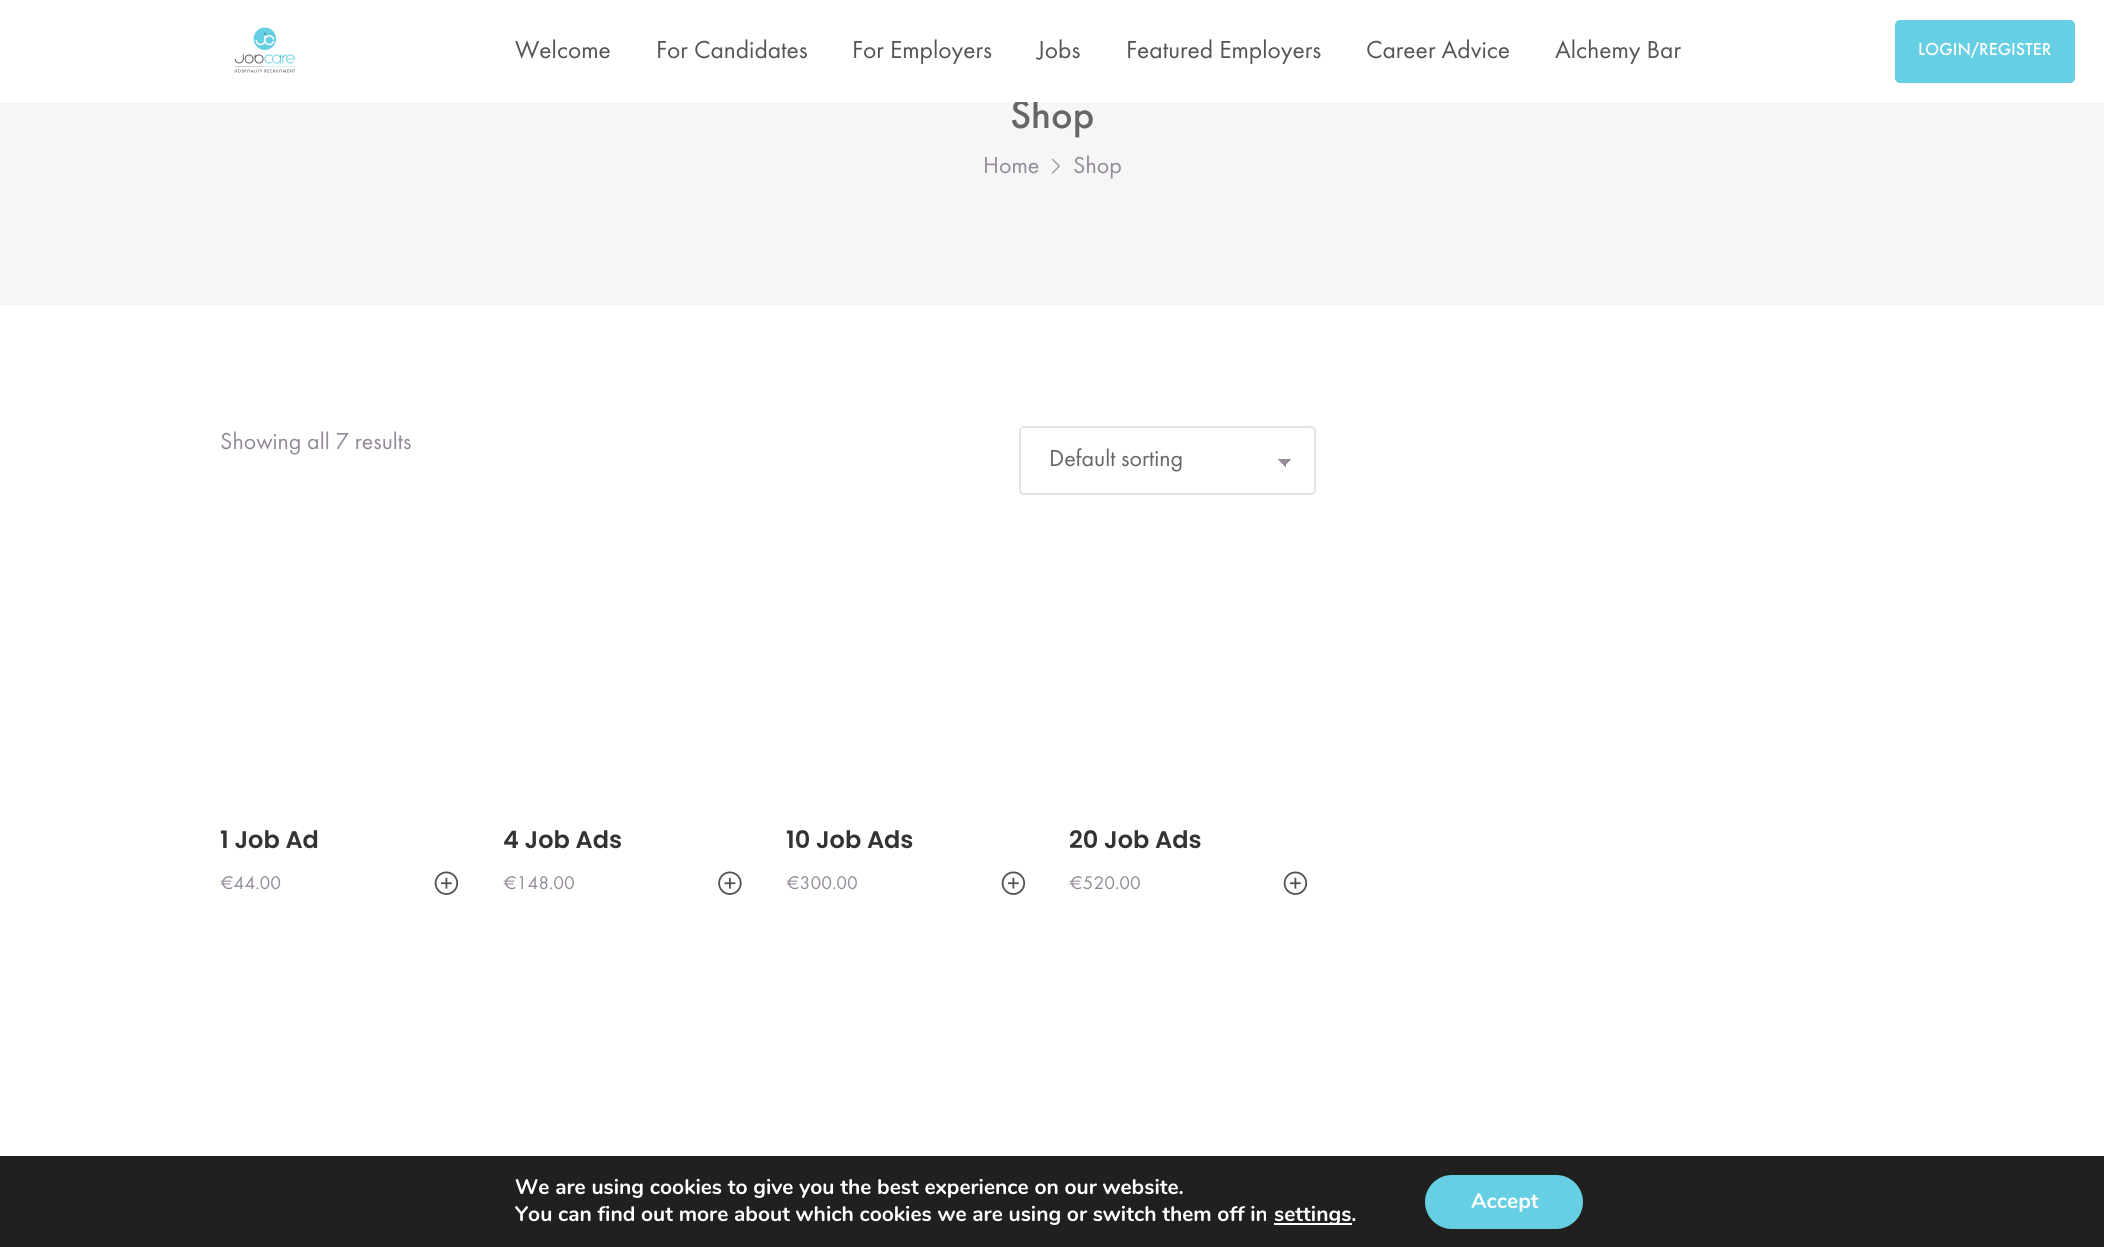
#include <cairo.h>
#include <math.h>
#include <stddef.h>

static cairo_t *ctx;

static void use_color(int r, int g, int b) {
    cairo_set_source_rgb(ctx, r / 255.0, g / 255.0, b / 255.0);
}

static void round_rect(double x, double y, double w, double h, double r) {
    cairo_new_sub_path(ctx);
    cairo_arc(ctx, x + w - r, y + h - r, r, 0, M_PI / 2);
    cairo_arc(ctx, x + r, y + h - r, r, M_PI / 2, M_PI);
    cairo_arc(ctx, x + r, y + r, r, M_PI, 1.5 * M_PI);
    cairo_arc(ctx, x + w - r, y + r, r, 1.5 * M_PI, 2 * M_PI);
    cairo_close_path(ctx);
}

static void picture(const char *path, double x, double y, double w, double h) {
    cairo_surface_t *image = cairo_image_surface_create_from_png(path);
    cairo_save(ctx);
    cairo_set_source_surface(ctx, image, x, y);
    cairo_rectangle(ctx, x, y, w, h);
    cairo_fill(ctx);
    cairo_restore(ctx);
    cairo_surface_destroy(image);
}

int main(void) {
    cairo_surface_t *surface = cairo_image_surface_create(CAIRO_FORMAT_RGB24, 2104, 1247);
    ctx = cairo_create(surface);
    cairo_font_options_t *options = cairo_font_options_create();
    cairo_font_options_set_hint_metrics(options, CAIRO_HINT_METRICS_OFF);
    cairo_font_options_set_hint_style(options, CAIRO_HINT_STYLE_NONE);
    cairo_set_font_options(ctx, options);
    cairo_set_miter_limit(ctx, 4);
    cairo_pattern_t *gradient;
    use_color(255, 255, 255);
    cairo_paint(ctx);
    use_color(246, 246, 246);
    cairo_rectangle(ctx, 0, 102, 2104, 204);
    cairo_fill(ctx);
    cairo_select_font_face(ctx, "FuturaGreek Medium", CAIRO_FONT_SLANT_NORMAL, CAIRO_FONT_WEIGHT_NORMAL);
    cairo_set_font_size(ctx, 41);
    use_color(102, 102, 102);
    cairo_move_to(ctx, 1010, 128);
    cairo_show_text(ctx, "Shop");
    use_color(255, 255, 255);
    cairo_rectangle(ctx, 1016, 98, 22, 4);
    cairo_fill(ctx);
    picture("img1.png", 234, 27, 61, 46);
    cairo_select_font_face(ctx, "FuturaGreek", CAIRO_FONT_SLANT_NORMAL, CAIRO_FONT_WEIGHT_NORMAL);
    cairo_set_font_size(ctx, 25.5);
    use_color(85, 85, 89);
    cairo_move_to(ctx, 515, 58);
    cairo_show_text(ctx, "Welcome");
    cairo_move_to(ctx, 656, 58);
    cairo_show_text(ctx, "For Candidates");
    cairo_move_to(ctx, 852, 58);
    cairo_show_text(ctx, "For Employers");
    cairo_move_to(ctx, 1037, 58);
    cairo_show_text(ctx, "Jobs");
    cairo_move_to(ctx, 1126, 58);
    cairo_show_text(ctx, "Featured Employers");
    cairo_move_to(ctx, 1366, 58);
    cairo_show_text(ctx, "Career Advice");
    cairo_move_to(ctx, 1555, 58);
    cairo_show_text(ctx, "Alchemy Bar");
    use_color(102, 207, 227);
    round_rect(1895, 20, 180, 63, 5);
    cairo_fill(ctx);
    cairo_select_font_face(ctx, "FuturaGreek Medium", CAIRO_FONT_SLANT_NORMAL, CAIRO_FONT_WEIGHT_NORMAL);
    cairo_set_font_size(ctx, 18);
    use_color(255, 255, 255);
    cairo_move_to(ctx, 1918, 55);
    cairo_show_text(ctx, "LOGIN/REGISTER");
    cairo_select_font_face(ctx, "FuturaGreek", CAIRO_FONT_SLANT_NORMAL, CAIRO_FONT_WEIGHT_NORMAL);
    cairo_set_font_size(ctx, 24);
    use_color(148, 138, 153);
    cairo_move_to(ctx, 983, 173);
    cairo_show_text(ctx, "Home");
    picture("img2.png", 1051, 158, 9, 16);
    cairo_move_to(ctx, 1073, 173);
    cairo_show_text(ctx, "Shop");
    cairo_move_to(ctx, 220, 449);
    cairo_show_text(ctx, "Showing all 7 results");
    gradient = cairo_pattern_create_linear(1284, 459, 1292, 467);
    cairo_pattern_add_color_stop_rgba(gradient, 0.5, 0.58, 0.541, 0.6, 1);
    cairo_pattern_add_color_stop_rgba(gradient, 0.5, 1, 1, 1, 1);
    cairo_set_source(ctx, gradient);
    cairo_pattern_destroy(gradient);
    cairo_rectangle(ctx, 1284, 459, 8, 7);
    cairo_fill(ctx);
    gradient = cairo_pattern_create_linear(1278, 467, 1286, 459);
    cairo_pattern_add_color_stop_rgba(gradient, 0.5, 0.58, 0.541, 0.6, 0);
    cairo_pattern_add_color_stop_rgba(gradient, 0.5, 0.58, 0.541, 0.6, 1);
    cairo_set_source(ctx, gradient);
    cairo_pattern_destroy(gradient);
    cairo_rectangle(ctx, 1278, 459, 8, 8);
    cairo_fill(ctx);
    round_rect(1020, 427, 295, 67, 4);
    use_color(227, 227, 227);
    cairo_stroke(ctx);
    use_color(102, 102, 102);
    cairo_move_to(ctx, 1049, 466);
    cairo_show_text(ctx, "Default sorting");
    cairo_select_font_face(ctx, "Poppins SemiBold", CAIRO_FONT_SLANT_NORMAL, CAIRO_FONT_WEIGHT_NORMAL);
    use_color(51, 51, 51);
    cairo_move_to(ctx, 220, 848);
    cairo_show_text(ctx, "1 Job Ad");
    cairo_select_font_face(ctx, "FuturaGreek", CAIRO_FONT_SLANT_NORMAL, CAIRO_FONT_WEIGHT_NORMAL);
    cairo_set_font_size(ctx, 19);
    use_color(148, 138, 153);
    cairo_move_to(ctx, 220, 889);
    cairo_show_text(ctx, "€44.00");
    picture("img3.png", 434, 871, 25, 24);
    cairo_select_font_face(ctx, "Poppins SemiBold", CAIRO_FONT_SLANT_NORMAL, CAIRO_FONT_WEIGHT_NORMAL);
    cairo_set_font_size(ctx, 24);
    use_color(51, 51, 51);
    cairo_move_to(ctx, 503, 848);
    cairo_show_text(ctx, "4 Job Ads");
    cairo_select_font_face(ctx, "FuturaGreek", CAIRO_FONT_SLANT_NORMAL, CAIRO_FONT_WEIGHT_NORMAL);
    cairo_set_font_size(ctx, 19);
    use_color(148, 138, 153);
    cairo_move_to(ctx, 503, 889);
    cairo_show_text(ctx, "€148.00");
    picture("img4.png", 718, 871, 24, 24);
    cairo_select_font_face(ctx, "Poppins SemiBold", CAIRO_FONT_SLANT_NORMAL, CAIRO_FONT_WEIGHT_NORMAL);
    cairo_set_font_size(ctx, 24);
    use_color(51, 51, 51);
    cairo_move_to(ctx, 786, 848);
    cairo_show_text(ctx, "10 Job Ads");
    cairo_select_font_face(ctx, "FuturaGreek", CAIRO_FONT_SLANT_NORMAL, CAIRO_FONT_WEIGHT_NORMAL);
    cairo_set_font_size(ctx, 19);
    use_color(148, 138, 153);
    cairo_move_to(ctx, 786, 889);
    cairo_show_text(ctx, "€300.00");
    picture("img3.png", 1001, 871, 25, 24);
    cairo_select_font_face(ctx, "Poppins SemiBold", CAIRO_FONT_SLANT_NORMAL, CAIRO_FONT_WEIGHT_NORMAL);
    cairo_set_font_size(ctx, 24);
    use_color(51, 51, 51);
    cairo_move_to(ctx, 1069, 848);
    cairo_show_text(ctx, "20 Job Ads");
    cairo_select_font_face(ctx, "FuturaGreek", CAIRO_FONT_SLANT_NORMAL, CAIRO_FONT_WEIGHT_NORMAL);
    cairo_set_font_size(ctx, 19);
    use_color(148, 138, 153);
    cairo_move_to(ctx, 1069, 889);
    cairo_show_text(ctx, "€520.00");
    picture("img3.png", 1283, 871, 25, 24);
    use_color(32, 32, 32);
    cairo_rectangle(ctx, 0, 1156, 2104, 91);
    cairo_fill(ctx);
    cairo_select_font_face(ctx, "Nunito", CAIRO_FONT_SLANT_NORMAL, CAIRO_FONT_WEIGHT_BOLD);
    cairo_set_font_size(ctx, 21);
    use_color(255, 255, 255);
    cairo_move_to(ctx, 515, 1194);
    cairo_show_text(ctx, "We are using cookies to give you the best experience on our website.");
    cairo_move_to(ctx, 515, 1221);
    cairo_show_text(ctx, "You can find out more about which cookies we are using or switch them off in");
    cairo_rectangle(ctx, 1274, 1223, 78, 2);
    cairo_fill(ctx);
    cairo_move_to(ctx, 1274, 1221);
    cairo_show_text(ctx, "settings.");
    use_color(102, 207, 227);
    round_rect(1425, 1175, 158, 54, 27);
    cairo_fill(ctx);
    use_color(255, 255, 255);
    cairo_move_to(ctx, 1471, 1208);
    cairo_show_text(ctx, "Accept");
    cairo_surface_write_to_png(surface, "result.png");
    cairo_font_options_destroy(options);
    cairo_destroy(ctx);
    cairo_surface_destroy(surface);
    return 0;
}
